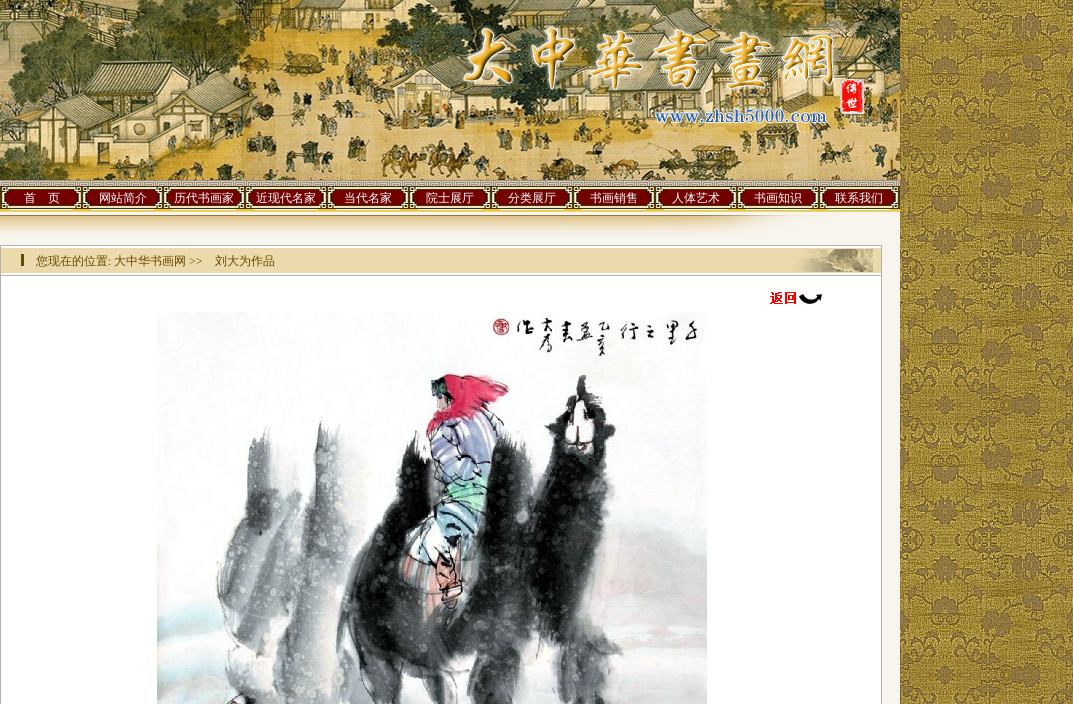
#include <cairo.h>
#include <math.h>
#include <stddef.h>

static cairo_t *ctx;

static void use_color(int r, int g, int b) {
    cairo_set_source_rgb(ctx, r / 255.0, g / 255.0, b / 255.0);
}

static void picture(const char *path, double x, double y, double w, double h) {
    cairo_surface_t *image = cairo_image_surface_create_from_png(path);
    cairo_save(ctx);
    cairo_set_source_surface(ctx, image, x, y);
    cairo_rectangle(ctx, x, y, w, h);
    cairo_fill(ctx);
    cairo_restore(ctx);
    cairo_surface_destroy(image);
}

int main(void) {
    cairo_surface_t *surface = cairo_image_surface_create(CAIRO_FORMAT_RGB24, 1073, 704);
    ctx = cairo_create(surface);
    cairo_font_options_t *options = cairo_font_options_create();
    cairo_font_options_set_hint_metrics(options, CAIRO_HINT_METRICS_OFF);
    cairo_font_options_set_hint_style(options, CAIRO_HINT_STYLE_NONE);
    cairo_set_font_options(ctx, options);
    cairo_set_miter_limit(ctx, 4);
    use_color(255, 255, 255);
    cairo_paint(ctx);
    picture("img1.png", 900, 0, 173, 704);
    picture("img2.png", 0, 0, 900, 180);
    use_color(248, 245, 238);
    cairo_rectangle(ctx, 0, 212, 900, 492);
    cairo_fill(ctx);
    picture("img3.png", 0, 180, 900, 32);
    picture("img4.png", 0, 186, 10, 23);
    picture("img5.png", 10, 186, 63, 24);
    cairo_select_font_face(ctx, "WenQuanYi Zen Hei Medium", CAIRO_FONT_SLANT_NORMAL, CAIRO_FONT_WEIGHT_NORMAL);
    cairo_set_font_size(ctx, 12);
    use_color(255, 254, 255);
    cairo_move_to(ctx, 24, 202);
    cairo_show_text(ctx, "首　页");
    picture("img6.png", 73, 186, 8, 23);
    picture("img4.png", 81, 186, 10, 23);
    picture("img5.png", 91, 186, 63, 24);
    cairo_move_to(ctx, 99, 202);
    cairo_show_text(ctx, "网站简介");
    picture("img6.png", 154, 186, 8, 23);
    picture("img4.png", 162, 186, 10, 23);
    picture("img7.png", 172, 186, 64, 24);
    cairo_move_to(ctx, 174, 202);
    cairo_show_text(ctx, "历代书画家");
    picture("img6.png", 236, 186, 8, 23);
    picture("img4.png", 244, 186, 10, 23);
    picture("img7.png", 254, 186, 64, 24);
    cairo_move_to(ctx, 256, 202);
    cairo_show_text(ctx, "近现代名家");
    picture("img6.png", 318, 186, 8, 23);
    picture("img4.png", 326, 186, 10, 23);
    picture("img7.png", 336, 186, 64, 24);
    cairo_move_to(ctx, 344, 202);
    cairo_show_text(ctx, "当代名家");
    picture("img6.png", 400, 186, 8, 23);
    picture("img4.png", 408, 186, 10, 23);
    picture("img7.png", 418, 186, 64, 24);
    cairo_move_to(ctx, 426, 202);
    cairo_show_text(ctx, "院士展厅");
    picture("img6.png", 482, 186, 8, 23);
    picture("img4.png", 490, 186, 10, 23);
    picture("img7.png", 500, 186, 64, 24);
    cairo_move_to(ctx, 508, 202);
    cairo_show_text(ctx, "分类展厅");
    picture("img6.png", 564, 186, 8, 23);
    picture("img4.png", 572, 186, 10, 23);
    picture("img7.png", 582, 186, 64, 24);
    cairo_move_to(ctx, 590, 202);
    cairo_show_text(ctx, "书画销售");
    picture("img6.png", 646, 186, 8, 23);
    picture("img4.png", 654, 186, 10, 23);
    picture("img7.png", 664, 186, 64, 24);
    cairo_move_to(ctx, 672, 202);
    cairo_show_text(ctx, "人体艺术");
    picture("img6.png", 728, 186, 8, 23);
    picture("img4.png", 736, 186, 10, 23);
    picture("img7.png", 746, 186, 64, 24);
    cairo_move_to(ctx, 754, 202);
    cairo_show_text(ctx, "书画知识");
    picture("img6.png", 810, 186, 8, 23);
    picture("img4.png", 818, 186, 10, 23);
    picture("img8.png", 828, 186, 62, 24);
    cairo_move_to(ctx, 835, 202);
    cairo_show_text(ctx, "联系我们");
    picture("img9.png", 890, 186, 10, 23);
    picture("img10.png", 0, 215, 481, 21);
    picture("img11.png", 481, 215, 354, 22);
    use_color(255, 255, 255);
    cairo_rectangle(ctx, 1, 246, 880, 458);
    cairo_fill(ctx);
    cairo_rectangle(ctx, 0.5, 245.5, 881, 30);
    use_color(179, 178, 174);
    cairo_set_line_width(ctx, 1);
    cairo_stroke(ctx);
    use_color(235, 218, 172);
    cairo_rectangle(ctx, 1, 248, 880, 25);
    cairo_fill(ctx);
    use_color(96, 76, 7);
    cairo_rectangle(ctx, 21, 254, 3, 12);
    cairo_fill(ctx);
    use_color(100, 74, 0);
    cairo_move_to(ctx, 36, 265);
    cairo_show_text(ctx, "您现在的位置");
    cairo_select_font_face(ctx, "Liberation Serif", CAIRO_FONT_SLANT_NORMAL, CAIRO_FONT_WEIGHT_NORMAL);
    cairo_move_to(ctx, 108, 265);
    cairo_show_text(ctx, ":");
    cairo_select_font_face(ctx, "WenQuanYi Zen Hei Medium", CAIRO_FONT_SLANT_NORMAL, CAIRO_FONT_WEIGHT_NORMAL);
    use_color(107, 69, 0);
    cairo_move_to(ctx, 114, 265);
    cairo_show_text(ctx, "大中华书画网");
    cairo_select_font_face(ctx, "Liberation Serif", CAIRO_FONT_SLANT_NORMAL, CAIRO_FONT_WEIGHT_NORMAL);
    use_color(100, 74, 0);
    cairo_move_to(ctx, 189, 265);
    cairo_show_text(ctx, ">>");
    cairo_select_font_face(ctx, "WenQuanYi Zen Hei Medium", CAIRO_FONT_SLANT_NORMAL, CAIRO_FONT_WEIGHT_NORMAL);
    cairo_move_to(ctx, 215, 265);
    cairo_show_text(ctx, "刘大为作品");
    picture("img12.png", 792, 249, 89, 23);
    use_color(179, 178, 174);
    cairo_rectangle(ctx, 881, 276, 1, 428);
    cairo_fill(ctx);
    cairo_rectangle(ctx, 0, 276, 1, 428);
    cairo_fill(ctx);
    picture("img13.png", 770, 292, 52, 12);
    picture("img14.png", 157, 312, 550, 392);
    cairo_surface_write_to_png(surface, "result.png");
    cairo_font_options_destroy(options);
    cairo_destroy(ctx);
    cairo_surface_destroy(surface);
    return 0;
}
